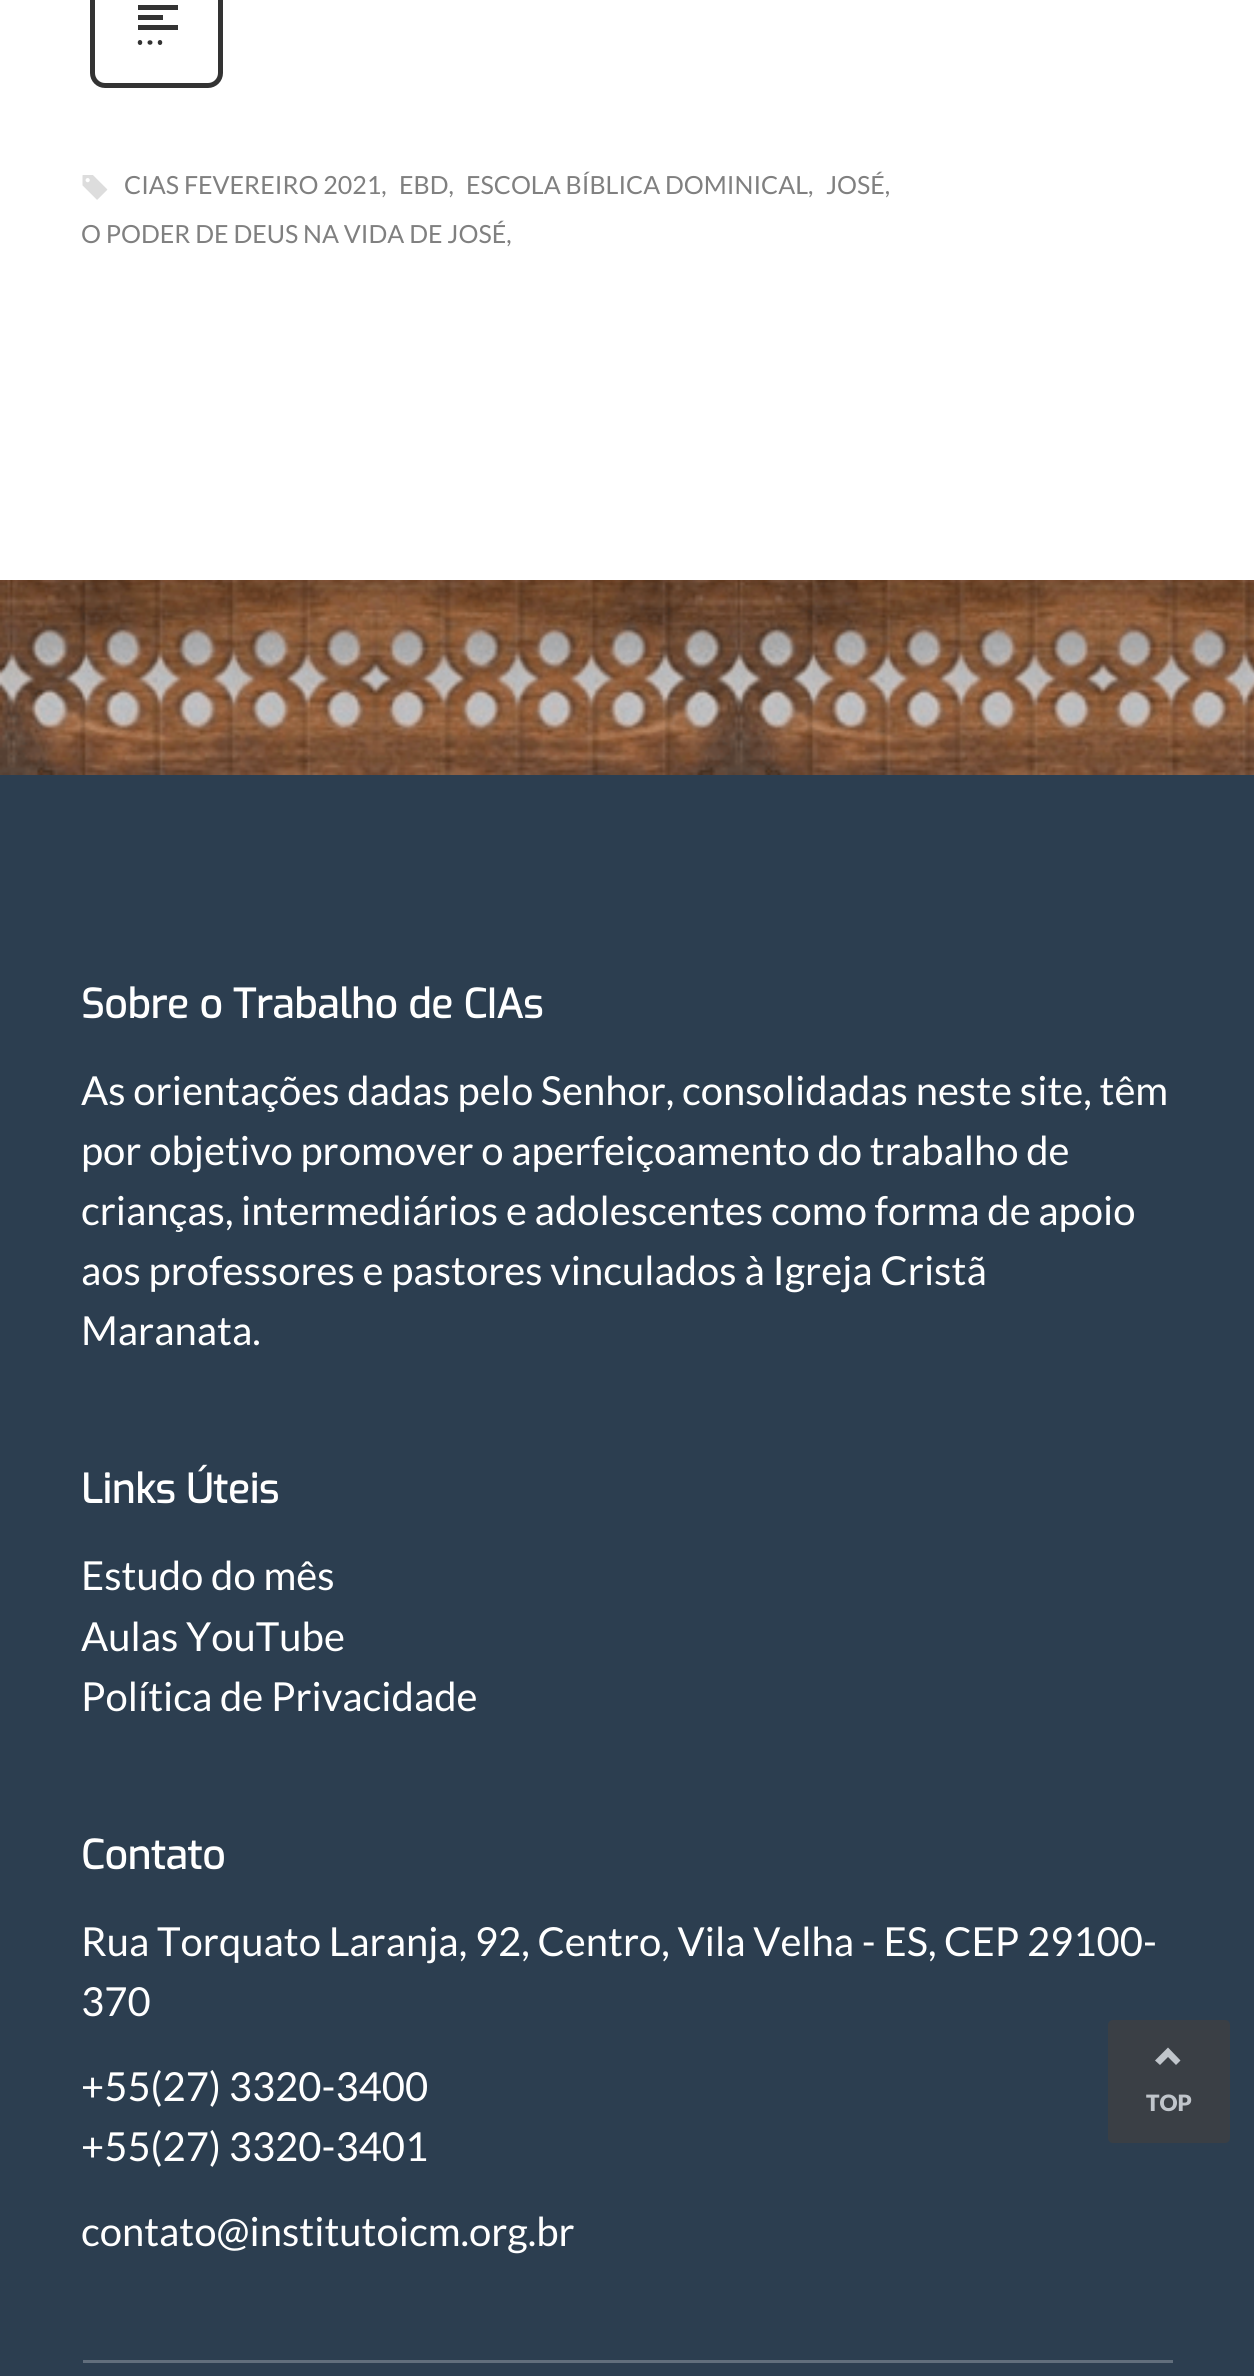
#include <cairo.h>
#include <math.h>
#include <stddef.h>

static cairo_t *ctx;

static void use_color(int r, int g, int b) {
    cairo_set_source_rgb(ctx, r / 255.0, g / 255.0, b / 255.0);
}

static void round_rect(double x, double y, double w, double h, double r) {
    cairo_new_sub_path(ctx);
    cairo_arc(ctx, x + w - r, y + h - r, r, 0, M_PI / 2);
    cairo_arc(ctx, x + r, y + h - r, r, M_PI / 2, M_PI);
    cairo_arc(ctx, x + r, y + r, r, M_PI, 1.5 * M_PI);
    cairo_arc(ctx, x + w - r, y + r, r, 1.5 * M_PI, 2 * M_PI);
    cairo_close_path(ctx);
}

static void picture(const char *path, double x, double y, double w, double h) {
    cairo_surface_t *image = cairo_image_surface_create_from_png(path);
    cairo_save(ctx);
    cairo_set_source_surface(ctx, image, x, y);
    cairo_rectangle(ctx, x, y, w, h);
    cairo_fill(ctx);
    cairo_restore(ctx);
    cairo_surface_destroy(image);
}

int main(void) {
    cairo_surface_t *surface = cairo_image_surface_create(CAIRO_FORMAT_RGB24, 1254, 2376);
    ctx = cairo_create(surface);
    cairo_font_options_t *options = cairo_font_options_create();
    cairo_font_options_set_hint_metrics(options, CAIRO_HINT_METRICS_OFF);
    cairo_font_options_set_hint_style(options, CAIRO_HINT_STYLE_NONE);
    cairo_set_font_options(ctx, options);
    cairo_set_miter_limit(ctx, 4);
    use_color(255, 255, 255);
    cairo_paint(ctx);
    use_color(51, 51, 51);
    cairo_rectangle(ctx, 138, 5, 40, 5);
    cairo_fill(ctx);
    cairo_rectangle(ctx, 138, 15, 25, 5);
    cairo_fill(ctx);
    cairo_rectangle(ctx, 138, 25, 40, 5);
    cairo_fill(ctx);
    cairo_new_path(ctx);
    cairo_move_to(ctx, 140, 40);
    cairo_curve_to(ctx, 143, 40, 143, 45, 140, 45);
    cairo_curve_to(ctx, 137, 45, 137, 40, 140, 40);
    cairo_close_path(ctx);
    cairo_move_to(ctx, 152.5, 42.5);
    cairo_curve_to(ctx, 152.5, 45.5, 147.5, 45.5, 147.5, 42.5);
    cairo_curve_to(ctx, 147.5, 39.5, 152.5, 39.5, 152.5, 42.5);
    cairo_close_path(ctx);
    cairo_move_to(ctx, 160, 40);
    cairo_curve_to(ctx, 163, 40, 163, 45, 160, 45);
    cairo_curve_to(ctx, 157, 45, 157, 40, 160, 40);
    cairo_close_path(ctx);
    cairo_fill(ctx);
    round_rect(92.5, -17.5, 128, 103, 12.5);
    cairo_set_line_width(ctx, 5);
    cairo_stroke(ctx);
    picture("img1.png", 82, 175, 26, 25);
    cairo_select_font_face(ctx, "Lato", CAIRO_FONT_SLANT_NORMAL, CAIRO_FONT_WEIGHT_NORMAL);
    cairo_set_font_size(ctx, 25);
    use_color(128, 128, 128);
    cairo_move_to(ctx, 124, 194);
    cairo_show_text(ctx, "CIAS FEVEREIRO 2021,");
    cairo_move_to(ctx, 399, 194);
    cairo_show_text(ctx, "EBD,");
    cairo_move_to(ctx, 466, 194);
    cairo_show_text(ctx, "ESCOLA BÍBLICA DOMINICAL,");
    cairo_move_to(ctx, 826, 194);
    cairo_show_text(ctx, "JOSÉ,");
    cairo_move_to(ctx, 81, 243);
    cairo_show_text(ctx, "O PODER DE DEUS NA VIDA DE JOSÉ,");
    picture("img2.png", 0, 580, 1254, 195);
    use_color(44, 62, 80);
    cairo_rectangle(ctx, 0, 775, 1254, 1601);
    cairo_fill(ctx);
    cairo_select_font_face(ctx, "Exo", CAIRO_FONT_SLANT_NORMAL, CAIRO_FONT_WEIGHT_BOLD);
    cairo_set_font_size(ctx, 40);
    use_color(255, 255, 255);
    cairo_move_to(ctx, 81, 1018);
    cairo_show_text(ctx, "Sobre o Trabalho de CIAs");
    cairo_select_font_face(ctx, "Lato", CAIRO_FONT_SLANT_NORMAL, CAIRO_FONT_WEIGHT_NORMAL);
    cairo_move_to(ctx, 81, 1105);
    cairo_show_text(ctx, "As orientações dadas pelo Senhor, consolidadas neste site, têm");
    cairo_move_to(ctx, 81, 1165);
    cairo_show_text(ctx, "por objetivo promover o aperfeiçoamento do trabalho de");
    cairo_move_to(ctx, 81, 1225);
    cairo_show_text(ctx, "crianças, intermediários e adolescentes como forma de apoio");
    cairo_move_to(ctx, 81, 1285);
    cairo_show_text(ctx, "aos professores e pastores vinculados à Igreja Cristã");
    cairo_move_to(ctx, 81, 1345);
    cairo_show_text(ctx, "Maranata.");
    cairo_select_font_face(ctx, "Exo", CAIRO_FONT_SLANT_NORMAL, CAIRO_FONT_WEIGHT_BOLD);
    cairo_move_to(ctx, 81, 1503);
    cairo_show_text(ctx, "Links Úteis");
    cairo_select_font_face(ctx, "Lato", CAIRO_FONT_SLANT_NORMAL, CAIRO_FONT_WEIGHT_NORMAL);
    cairo_move_to(ctx, 81, 1590);
    cairo_show_text(ctx, "Estudo do mês");
    cairo_move_to(ctx, 81, 1651);
    cairo_show_text(ctx, "Aulas YouTube");
    cairo_move_to(ctx, 81, 1711);
    cairo_show_text(ctx, "Política de Privacidade");
    cairo_select_font_face(ctx, "Exo", CAIRO_FONT_SLANT_NORMAL, CAIRO_FONT_WEIGHT_BOLD);
    cairo_move_to(ctx, 81, 1869);
    cairo_show_text(ctx, "Contato");
    cairo_select_font_face(ctx, "Lato", CAIRO_FONT_SLANT_NORMAL, CAIRO_FONT_WEIGHT_NORMAL);
    cairo_move_to(ctx, 81, 1956);
    cairo_show_text(ctx, "Rua Torquato Laranja, 92, Centro, Vila Velha - ES, CEP 29100-");
    cairo_move_to(ctx, 81, 2016);
    cairo_show_text(ctx, "370");
    cairo_move_to(ctx, 81, 2101);
    cairo_show_text(ctx, "+55(27) 3320-3400");
    cairo_move_to(ctx, 81, 2161);
    cairo_show_text(ctx, "+55(27) 3320-3401");
    cairo_move_to(ctx, 81, 2246);
    cairo_show_text(ctx, "contato@institutoicm.org.br");
    use_color(97, 110, 124);
    cairo_rectangle(ctx, 83, 2360, 1090, 3);
    cairo_fill(ctx);
    use_color(58, 63, 69);
    round_rect(1108, 2020, 122, 123, 5);
    cairo_fill(ctx);
    use_color(192, 197, 203);
    cairo_new_path(ctx);
    cairo_move_to(ctx, 1168, 2047.5);
    cairo_line_to(ctx, 1180.5, 2060.5);
    cairo_line_to(ctx, 1176, 2065);
    cairo_line_to(ctx, 1168, 2057);
    cairo_line_to(ctx, 1160, 2065);
    cairo_line_to(ctx, 1155, 2060.5);
    cairo_close_path(ctx);
    cairo_fill(ctx);
    cairo_select_font_face(ctx, "Lato Black", CAIRO_FONT_SLANT_NORMAL, CAIRO_FONT_WEIGHT_NORMAL);
    cairo_set_font_size(ctx, 22.5);
    cairo_move_to(ctx, 1146, 2111);
    cairo_show_text(ctx, "TOP");
    cairo_surface_write_to_png(surface, "result.png");
    cairo_font_options_destroy(options);
    cairo_destroy(ctx);
    cairo_surface_destroy(surface);
    return 0;
}
